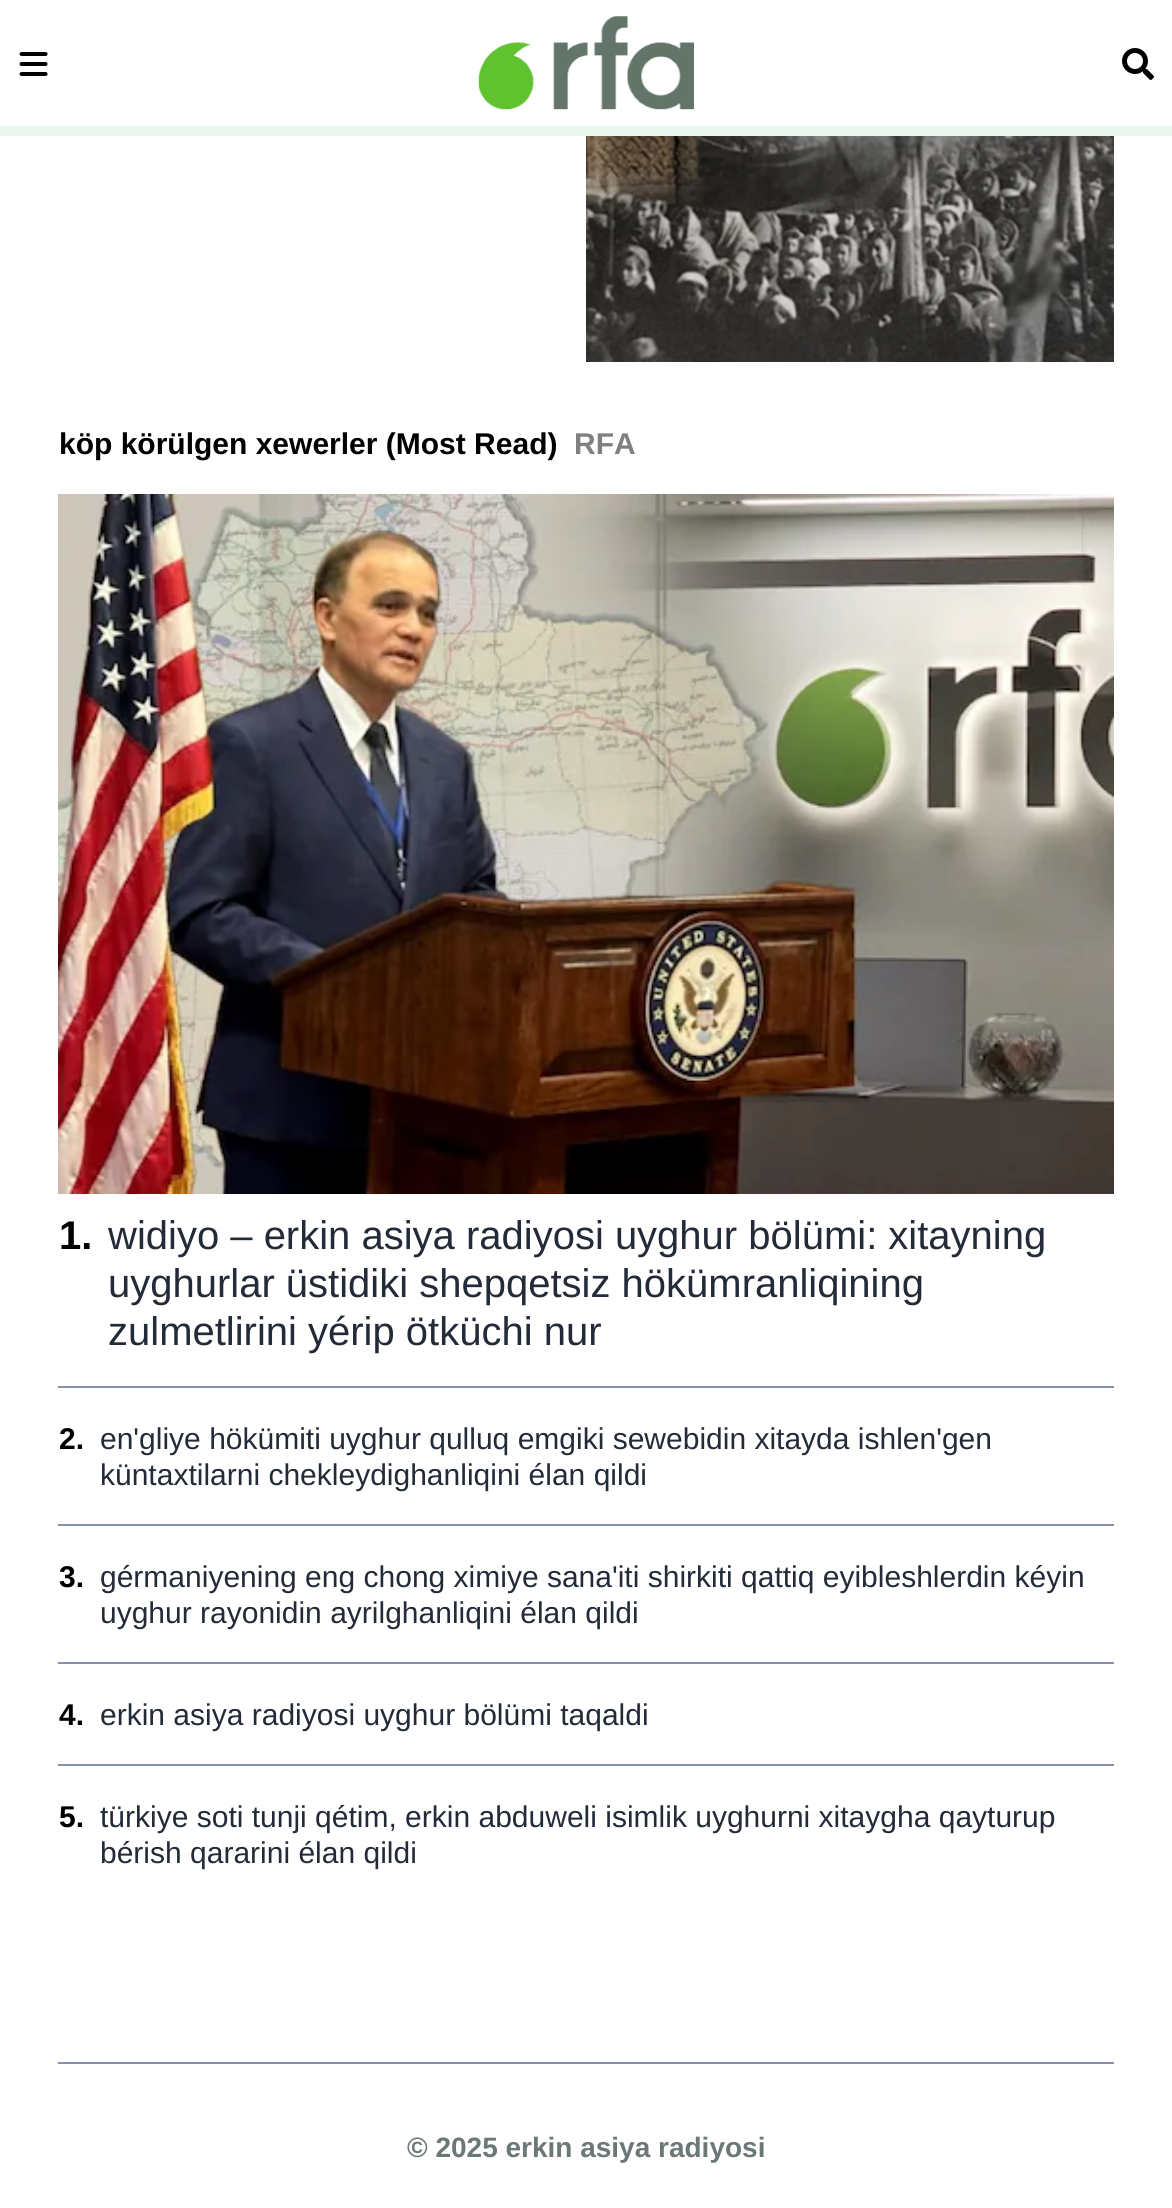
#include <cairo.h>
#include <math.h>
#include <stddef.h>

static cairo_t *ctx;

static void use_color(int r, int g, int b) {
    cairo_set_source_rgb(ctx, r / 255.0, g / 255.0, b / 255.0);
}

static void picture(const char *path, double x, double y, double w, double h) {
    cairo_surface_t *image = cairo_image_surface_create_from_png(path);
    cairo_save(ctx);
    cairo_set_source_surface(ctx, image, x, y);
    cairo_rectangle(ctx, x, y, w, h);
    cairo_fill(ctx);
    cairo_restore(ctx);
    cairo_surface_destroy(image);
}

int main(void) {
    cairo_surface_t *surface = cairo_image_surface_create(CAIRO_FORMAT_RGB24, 1172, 2208);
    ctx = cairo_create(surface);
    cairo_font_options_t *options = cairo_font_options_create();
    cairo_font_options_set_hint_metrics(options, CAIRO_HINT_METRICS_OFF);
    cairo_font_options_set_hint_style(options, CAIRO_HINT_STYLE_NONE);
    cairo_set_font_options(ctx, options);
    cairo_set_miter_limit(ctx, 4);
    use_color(255, 255, 255);
    cairo_paint(ctx);
    use_color(235, 246, 240);
    cairo_rectangle(ctx, 0, 126, 1172, 10);
    cairo_fill(ctx);
    picture("img1.png", 19, 52, 29, 24);
    picture("img2.png", 478, 16, 216, 94);
    picture("img3.png", 1122, 48, 32, 32);
    picture("img4.png", 586, 136, 528, 226);
    cairo_select_font_face(ctx, "Liberation Sans", CAIRO_FONT_SLANT_NORMAL, CAIRO_FONT_WEIGHT_BOLD);
    cairo_set_font_size(ctx, 30);
    use_color(0, 0, 0);
    cairo_move_to(ctx, 59, 454);
    cairo_show_text(ctx, "köp körülgen xewerler (Most Read)");
    use_color(128, 128, 128);
    cairo_move_to(ctx, 574, 454);
    cairo_show_text(ctx, "RFA");
    picture("img5.png", 58, 494, 1056, 700);
    cairo_set_font_size(ctx, 40);
    use_color(0, 0, 0);
    cairo_move_to(ctx, 59, 1249);
    cairo_show_text(ctx, "1.");
    cairo_select_font_face(ctx, "Liberation Sans", CAIRO_FONT_SLANT_NORMAL, CAIRO_FONT_WEIGHT_NORMAL);
    use_color(35, 43, 57);
    cairo_move_to(ctx, 108, 1249);
    cairo_show_text(ctx, "widiyo – erkin asiya radiyosi uyghur bölümi: xitayning");
    cairo_move_to(ctx, 108, 1297);
    cairo_show_text(ctx, "uyghurlar üstidiki shepqetsiz hökümranliqining");
    cairo_move_to(ctx, 108, 1345);
    cairo_show_text(ctx, "zulmetlirini yérip ötküchi nur");
    use_color(133, 147, 170);
    cairo_rectangle(ctx, 58, 1386, 1056, 2);
    cairo_fill(ctx);
    cairo_select_font_face(ctx, "Liberation Sans", CAIRO_FONT_SLANT_NORMAL, CAIRO_FONT_WEIGHT_BOLD);
    cairo_set_font_size(ctx, 30);
    use_color(0, 0, 0);
    cairo_move_to(ctx, 59, 1449);
    cairo_show_text(ctx, "2.");
    cairo_select_font_face(ctx, "Liberation Sans", CAIRO_FONT_SLANT_NORMAL, CAIRO_FONT_WEIGHT_NORMAL);
    use_color(35, 43, 57);
    cairo_move_to(ctx, 100, 1449);
    cairo_show_text(ctx, "en'gliye hökümiti uyghur qulluq emgiki sewebidin xitayda ishlen'gen");
    cairo_move_to(ctx, 100, 1485);
    cairo_show_text(ctx, "küntaxtilarni chekleydighanliqini élan qildi");
    use_color(133, 147, 170);
    cairo_rectangle(ctx, 58, 1524, 1056, 2);
    cairo_fill(ctx);
    cairo_select_font_face(ctx, "Liberation Sans", CAIRO_FONT_SLANT_NORMAL, CAIRO_FONT_WEIGHT_BOLD);
    use_color(0, 0, 0);
    cairo_move_to(ctx, 59, 1587);
    cairo_show_text(ctx, "3.");
    cairo_select_font_face(ctx, "Liberation Sans", CAIRO_FONT_SLANT_NORMAL, CAIRO_FONT_WEIGHT_NORMAL);
    use_color(35, 43, 57);
    cairo_move_to(ctx, 100, 1587);
    cairo_show_text(ctx, "gérmaniyening eng chong ximiye sana'iti shirkiti qattiq eyibleshlerdin kéyin");
    cairo_move_to(ctx, 100, 1623);
    cairo_show_text(ctx, "uyghur rayonidin ayrilghanliqini élan qildi");
    use_color(133, 147, 170);
    cairo_rectangle(ctx, 58, 1662, 1056, 2);
    cairo_fill(ctx);
    cairo_select_font_face(ctx, "Liberation Sans", CAIRO_FONT_SLANT_NORMAL, CAIRO_FONT_WEIGHT_BOLD);
    use_color(0, 0, 0);
    cairo_move_to(ctx, 59, 1725);
    cairo_show_text(ctx, "4.");
    cairo_select_font_face(ctx, "Liberation Sans", CAIRO_FONT_SLANT_NORMAL, CAIRO_FONT_WEIGHT_NORMAL);
    use_color(35, 43, 57);
    cairo_move_to(ctx, 100, 1725);
    cairo_show_text(ctx, "erkin asiya radiyosi uyghur bölümi taqaldi");
    use_color(133, 147, 170);
    cairo_rectangle(ctx, 58, 1764, 1056, 2);
    cairo_fill(ctx);
    cairo_select_font_face(ctx, "Liberation Sans", CAIRO_FONT_SLANT_NORMAL, CAIRO_FONT_WEIGHT_BOLD);
    use_color(0, 0, 0);
    cairo_move_to(ctx, 59, 1827);
    cairo_show_text(ctx, "5.");
    cairo_select_font_face(ctx, "Liberation Sans", CAIRO_FONT_SLANT_NORMAL, CAIRO_FONT_WEIGHT_NORMAL);
    use_color(35, 43, 57);
    cairo_move_to(ctx, 100, 1827);
    cairo_show_text(ctx, "türkiye soti tunji qétim, erkin abduweli isimlik uyghurni xitaygha qayturup");
    cairo_move_to(ctx, 100, 1863);
    cairo_show_text(ctx, "bérish qararini élan qildi");
    use_color(133, 147, 170);
    cairo_rectangle(ctx, 58, 2062, 1056, 2);
    cairo_fill(ctx);
    cairo_select_font_face(ctx, "Liberation Sans", CAIRO_FONT_SLANT_NORMAL, CAIRO_FONT_WEIGHT_BOLD);
    cairo_set_font_size(ctx, 28);
    use_color(108, 119, 120);
    cairo_move_to(ctx, 407, 2157);
    cairo_show_text(ctx, "© 2025 erkin asiya radiyosi");
    cairo_surface_write_to_png(surface, "result.png");
    cairo_font_options_destroy(options);
    cairo_destroy(ctx);
    cairo_surface_destroy(surface);
    return 0;
}
